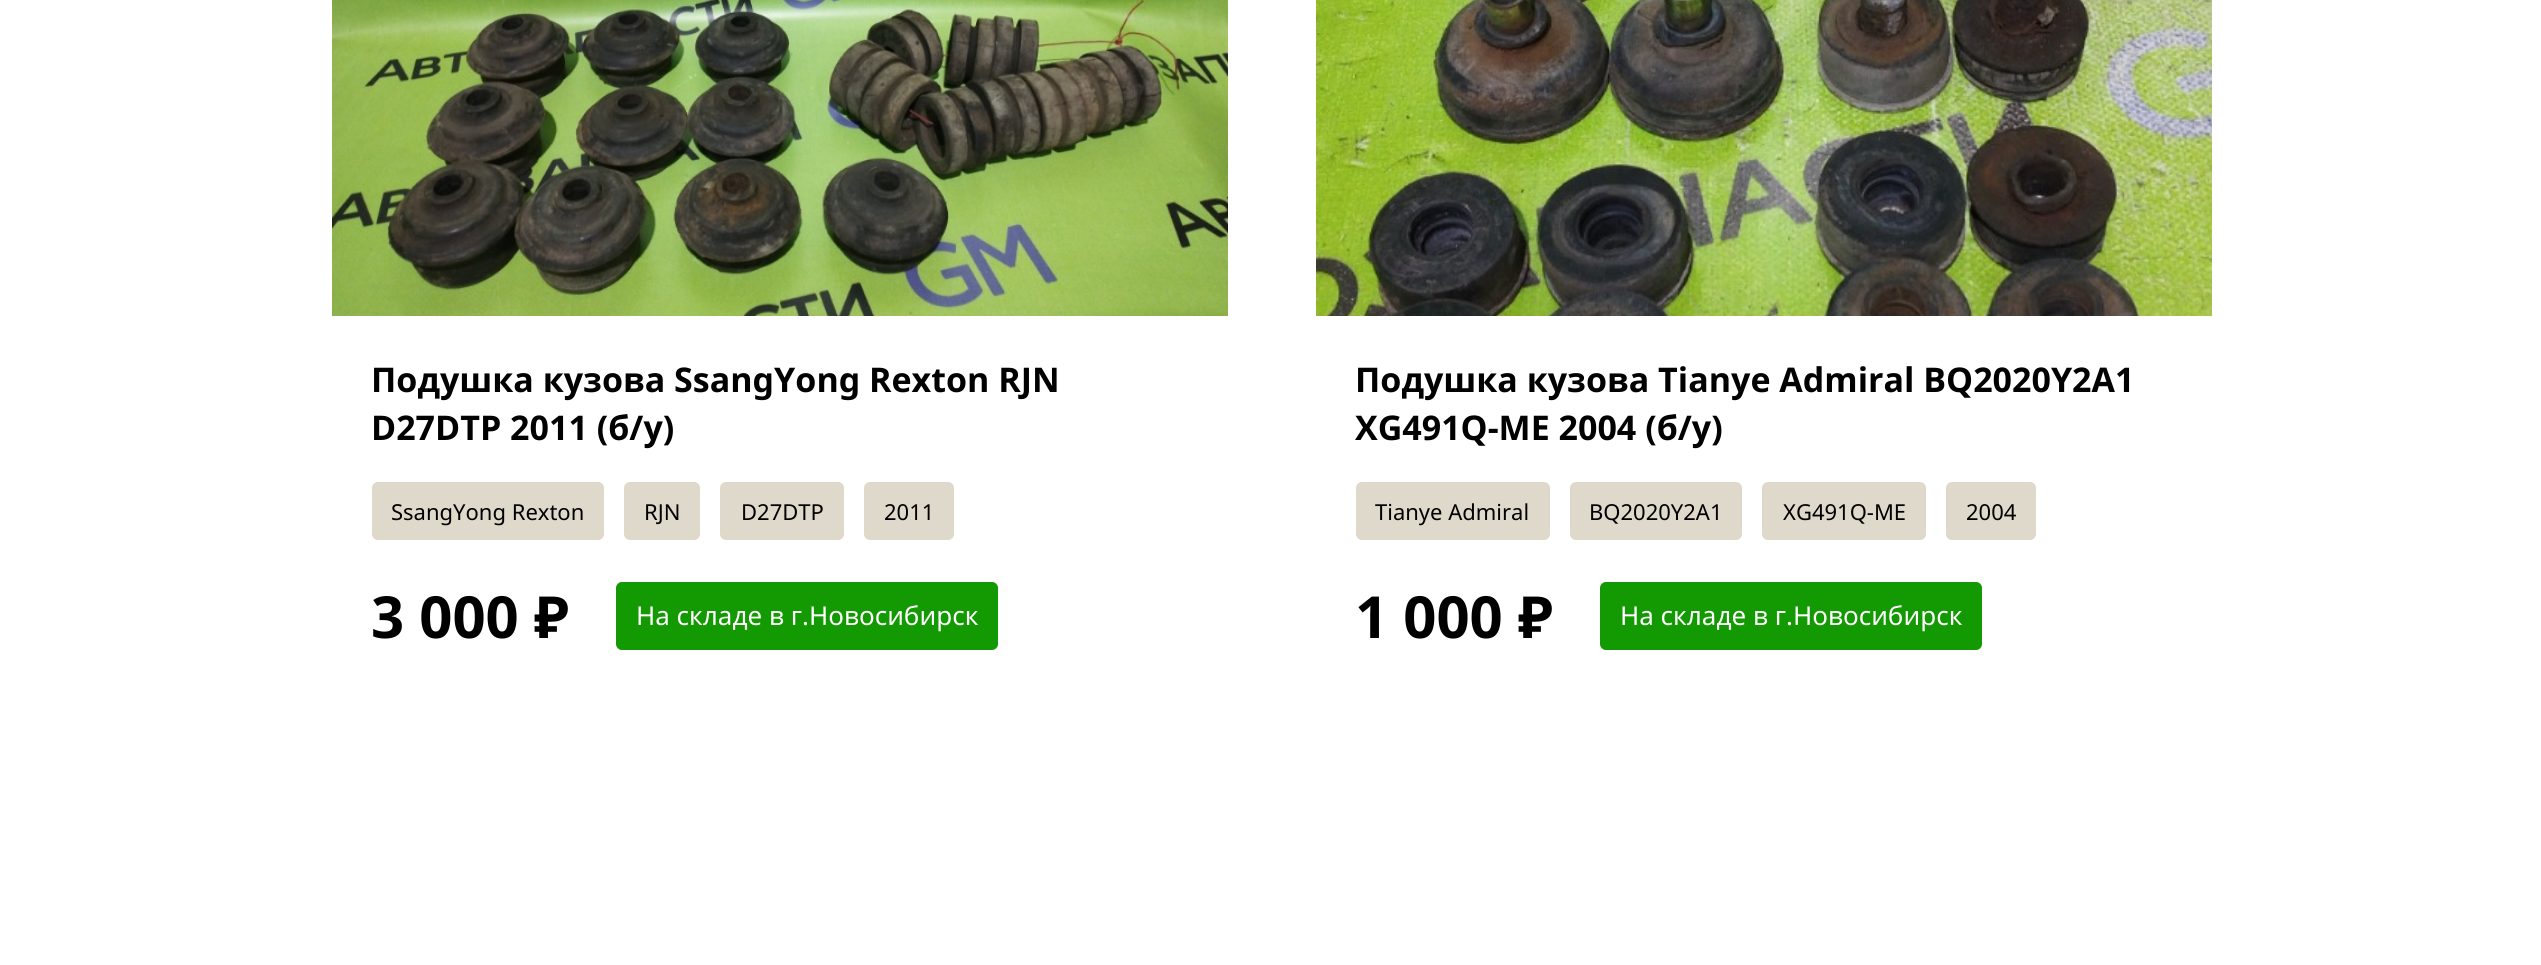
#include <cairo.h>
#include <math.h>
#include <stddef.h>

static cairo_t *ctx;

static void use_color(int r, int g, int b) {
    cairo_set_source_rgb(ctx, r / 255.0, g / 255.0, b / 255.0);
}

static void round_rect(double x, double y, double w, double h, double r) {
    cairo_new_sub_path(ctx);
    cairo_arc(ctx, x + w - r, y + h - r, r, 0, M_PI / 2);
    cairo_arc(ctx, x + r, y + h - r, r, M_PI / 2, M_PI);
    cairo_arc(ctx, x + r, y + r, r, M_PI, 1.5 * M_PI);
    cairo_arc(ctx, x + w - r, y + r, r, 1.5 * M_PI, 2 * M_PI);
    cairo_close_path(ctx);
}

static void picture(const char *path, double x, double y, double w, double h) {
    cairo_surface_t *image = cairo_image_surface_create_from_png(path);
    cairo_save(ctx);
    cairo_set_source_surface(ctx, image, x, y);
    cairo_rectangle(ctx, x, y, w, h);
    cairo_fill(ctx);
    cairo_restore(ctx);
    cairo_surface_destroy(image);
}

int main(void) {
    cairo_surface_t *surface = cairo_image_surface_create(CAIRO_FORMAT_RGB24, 2541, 965);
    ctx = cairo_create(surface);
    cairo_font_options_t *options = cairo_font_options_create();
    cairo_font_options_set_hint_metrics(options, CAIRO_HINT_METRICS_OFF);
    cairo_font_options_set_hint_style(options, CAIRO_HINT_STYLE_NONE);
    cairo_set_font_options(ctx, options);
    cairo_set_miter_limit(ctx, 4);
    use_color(255, 255, 255);
    cairo_paint(ctx);
    picture("img1.png", 332, 0, 896, 316);
    cairo_select_font_face(ctx, "Noto Sans", CAIRO_FONT_SLANT_NORMAL, CAIRO_FONT_WEIGHT_BOLD);
    cairo_set_font_size(ctx, 34);
    use_color(0, 0, 0);
    cairo_move_to(ctx, 371, 392);
    cairo_show_text(ctx, "Подушка кузова SsangYong Rexton RJN");
    cairo_move_to(ctx, 371, 440);
    cairo_show_text(ctx, "D27DTP 2011 (б/у)");
    use_color(223, 217, 204);
    round_rect(372, 482, 232, 58, 6);
    cairo_fill(ctx);
    cairo_select_font_face(ctx, "Noto Sans", CAIRO_FONT_SLANT_NORMAL, CAIRO_FONT_WEIGHT_NORMAL);
    cairo_set_font_size(ctx, 22);
    use_color(0, 0, 0);
    cairo_move_to(ctx, 391, 520);
    cairo_show_text(ctx, "SsangYong Rexton");
    use_color(223, 217, 204);
    round_rect(624, 482, 76, 58, 6);
    cairo_fill(ctx);
    use_color(0, 0, 0);
    cairo_move_to(ctx, 644, 520);
    cairo_show_text(ctx, "RJN");
    use_color(223, 217, 204);
    round_rect(720, 482, 124, 58, 6);
    cairo_fill(ctx);
    use_color(0, 0, 0);
    cairo_move_to(ctx, 741, 520);
    cairo_show_text(ctx, "D27DTP");
    use_color(223, 217, 204);
    round_rect(864, 482, 90, 58, 6);
    cairo_fill(ctx);
    use_color(0, 0, 0);
    cairo_move_to(ctx, 884, 520);
    cairo_show_text(ctx, "2011");
    cairo_select_font_face(ctx, "Noto Sans", CAIRO_FONT_SLANT_NORMAL, CAIRO_FONT_WEIGHT_BOLD);
    cairo_set_font_size(ctx, 58);
    cairo_move_to(ctx, 371, 638);
    cairo_show_text(ctx, "3 000");
    cairo_select_font_face(ctx, "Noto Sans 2", CAIRO_FONT_SLANT_NORMAL, CAIRO_FONT_WEIGHT_BOLD);
    cairo_move_to(ctx, 534, 638);
    cairo_show_text(ctx, "₽");
    use_color(19, 153, 1);
    round_rect(616, 582, 382, 68, 6);
    cairo_fill(ctx);
    cairo_select_font_face(ctx, "Noto Sans", CAIRO_FONT_SLANT_NORMAL, CAIRO_FONT_WEIGHT_NORMAL);
    cairo_set_font_size(ctx, 26);
    use_color(255, 255, 255);
    cairo_move_to(ctx, 636, 625);
    cairo_show_text(ctx, "На складе в г.Новосибирск");
    picture("img2.png", 1316, 0, 896, 316);
    cairo_select_font_face(ctx, "Noto Sans", CAIRO_FONT_SLANT_NORMAL, CAIRO_FONT_WEIGHT_BOLD);
    cairo_set_font_size(ctx, 34);
    use_color(0, 0, 0);
    cairo_move_to(ctx, 1355, 392);
    cairo_show_text(ctx, "Подушка кузова Tianye Admiral BQ2020Y2A1");
    cairo_move_to(ctx, 1355, 440);
    cairo_show_text(ctx, "XG491Q-ME 2004 (б/у)");
    use_color(223, 217, 204);
    round_rect(1356, 482, 194, 58, 6);
    cairo_fill(ctx);
    cairo_select_font_face(ctx, "Noto Sans", CAIRO_FONT_SLANT_NORMAL, CAIRO_FONT_WEIGHT_NORMAL);
    cairo_set_font_size(ctx, 22);
    use_color(0, 0, 0);
    cairo_move_to(ctx, 1375, 520);
    cairo_show_text(ctx, "Tianye Admiral");
    use_color(223, 217, 204);
    round_rect(1570, 482, 172, 58, 6);
    cairo_fill(ctx);
    use_color(0, 0, 0);
    cairo_move_to(ctx, 1589, 520);
    cairo_show_text(ctx, "BQ2020Y2A1");
    use_color(223, 217, 204);
    round_rect(1762, 482, 164, 58, 6);
    cairo_fill(ctx);
    use_color(0, 0, 0);
    cairo_move_to(ctx, 1783, 520);
    cairo_show_text(ctx, "XG491Q-ME");
    use_color(223, 217, 204);
    round_rect(1946, 482, 90, 58, 6);
    cairo_fill(ctx);
    use_color(0, 0, 0);
    cairo_move_to(ctx, 1966, 520);
    cairo_show_text(ctx, "2004");
    cairo_select_font_face(ctx, "Noto Sans", CAIRO_FONT_SLANT_NORMAL, CAIRO_FONT_WEIGHT_BOLD);
    cairo_set_font_size(ctx, 58);
    cairo_move_to(ctx, 1355, 638);
    cairo_show_text(ctx, "1 000");
    cairo_select_font_face(ctx, "Noto Sans 2", CAIRO_FONT_SLANT_NORMAL, CAIRO_FONT_WEIGHT_BOLD);
    cairo_move_to(ctx, 1518, 638);
    cairo_show_text(ctx, "₽");
    use_color(19, 153, 1);
    round_rect(1600, 582, 382, 68, 6);
    cairo_fill(ctx);
    cairo_select_font_face(ctx, "Noto Sans", CAIRO_FONT_SLANT_NORMAL, CAIRO_FONT_WEIGHT_NORMAL);
    cairo_set_font_size(ctx, 26);
    use_color(255, 255, 255);
    cairo_move_to(ctx, 1620, 625);
    cairo_show_text(ctx, "На складе в г.Новосибирск");
    cairo_surface_write_to_png(surface, "result.png");
    cairo_font_options_destroy(options);
    cairo_destroy(ctx);
    cairo_surface_destroy(surface);
    return 0;
}
